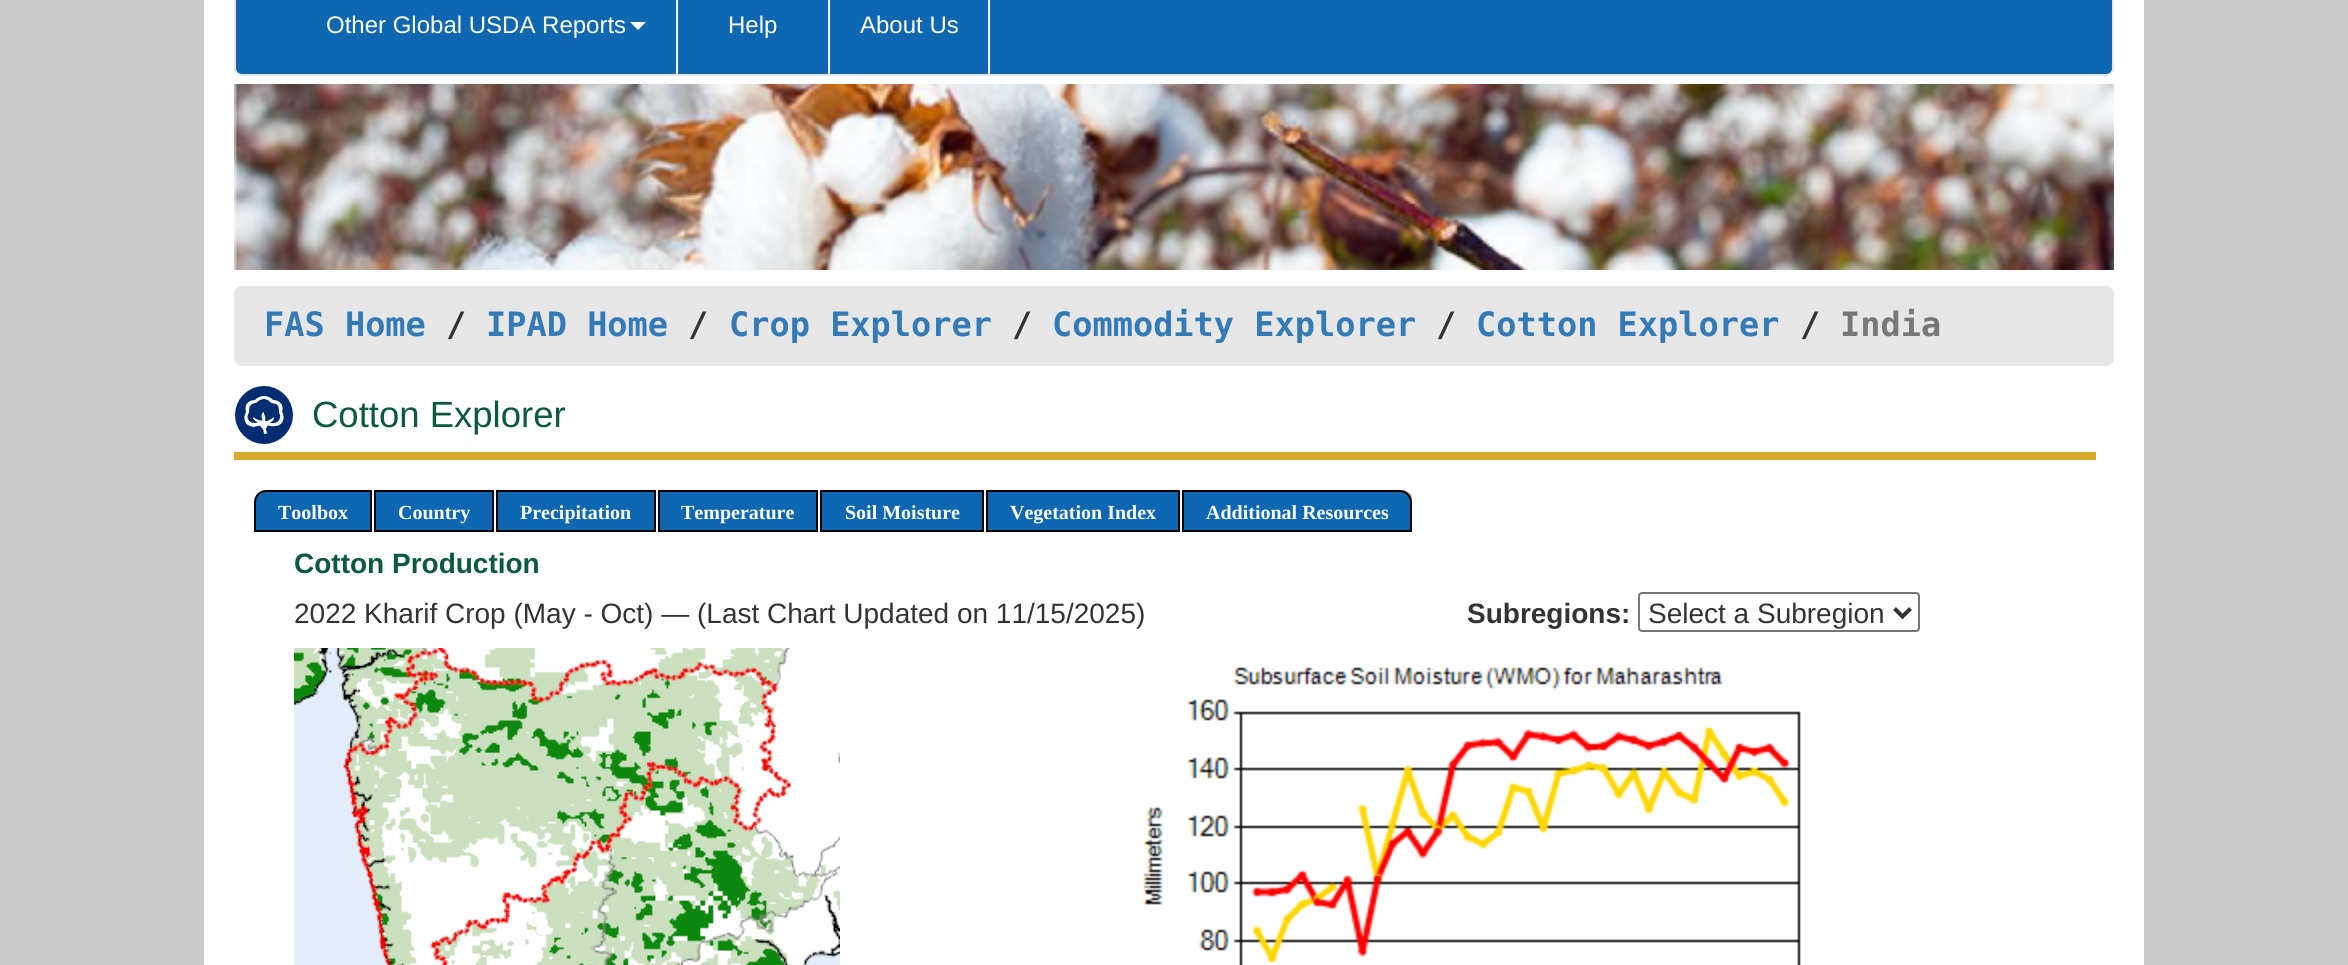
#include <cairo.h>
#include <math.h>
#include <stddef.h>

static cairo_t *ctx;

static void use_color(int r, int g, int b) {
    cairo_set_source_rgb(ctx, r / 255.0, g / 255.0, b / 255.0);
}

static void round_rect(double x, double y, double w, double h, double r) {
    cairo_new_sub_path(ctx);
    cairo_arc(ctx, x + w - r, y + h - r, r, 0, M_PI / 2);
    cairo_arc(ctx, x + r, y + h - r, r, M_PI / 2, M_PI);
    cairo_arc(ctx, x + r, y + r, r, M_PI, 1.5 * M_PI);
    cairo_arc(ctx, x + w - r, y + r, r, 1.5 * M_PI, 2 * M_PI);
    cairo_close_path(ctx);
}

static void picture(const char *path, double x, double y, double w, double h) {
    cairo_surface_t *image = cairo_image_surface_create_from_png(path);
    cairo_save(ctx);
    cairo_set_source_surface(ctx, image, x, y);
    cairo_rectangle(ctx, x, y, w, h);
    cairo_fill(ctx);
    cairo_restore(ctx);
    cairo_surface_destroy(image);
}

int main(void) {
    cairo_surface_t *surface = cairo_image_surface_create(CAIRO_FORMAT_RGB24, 2348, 965);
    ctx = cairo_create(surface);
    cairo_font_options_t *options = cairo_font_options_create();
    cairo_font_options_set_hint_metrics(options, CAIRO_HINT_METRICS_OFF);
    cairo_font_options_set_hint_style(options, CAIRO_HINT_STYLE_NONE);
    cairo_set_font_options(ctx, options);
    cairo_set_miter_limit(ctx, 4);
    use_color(204, 204, 204);
    cairo_paint(ctx);
    use_color(255, 255, 255);
    cairo_rectangle(ctx, 204, 0, 1940, 965);
    cairo_fill(ctx);
    use_color(14, 103, 176);
    cairo_new_path(ctx);
    cairo_move_to(ctx, 262, -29);
    cairo_line_to(ctx, 2086, -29);
    cairo_curve_to(ctx, 2101, -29, 2113, -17, 2113, -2);
    cairo_line_to(ctx, 2113, 68);
    cairo_curve_to(ctx, 2113, 72, 2110, 75, 2106, 75);
    cairo_line_to(ctx, 242, 75);
    cairo_curve_to(ctx, 238, 75, 235, 72, 235, 68);
    cairo_line_to(ctx, 235, -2);
    cairo_curve_to(ctx, 235, -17, 247, -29, 262, -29);
    cairo_close_path(ctx);
    cairo_fill_preserve(ctx);
    use_color(231, 231, 231);
    cairo_stroke(ctx);
    use_color(255, 255, 255);
    cairo_rectangle(ctx, 676, 0, 2, 74);
    cairo_fill(ctx);
    cairo_select_font_face(ctx, "Liberation Sans", CAIRO_FONT_SLANT_NORMAL, CAIRO_FONT_WEIGHT_NORMAL);
    cairo_set_font_size(ctx, 24);
    cairo_move_to(ctx, 326, 33);
    cairo_show_text(ctx, "Other Global USDA Reports");
    cairo_new_path(ctx);
    cairo_move_to(ctx, 630, 22);
    cairo_line_to(ctx, 646, 22);
    cairo_line_to(ctx, 638, 30);
    cairo_close_path(ctx);
    cairo_fill(ctx);
    cairo_rectangle(ctx, 828, 0, 2, 74);
    cairo_fill(ctx);
    cairo_move_to(ctx, 728, 33);
    cairo_show_text(ctx, "Help");
    cairo_rectangle(ctx, 988, 0, 2, 74);
    cairo_fill(ctx);
    cairo_move_to(ctx, 860, 33);
    cairo_show_text(ctx, "About Us");
    picture("img1.png", 234, 84, 1880, 186);
    use_color(231, 231, 231);
    round_rect(234, 286, 1880, 80, 8);
    cairo_fill(ctx);
    cairo_select_font_face(ctx, "DejaVu Sans Mono", CAIRO_FONT_SLANT_NORMAL, CAIRO_FONT_WEIGHT_BOLD);
    cairo_set_font_size(ctx, 33.6);
    use_color(51, 122, 183);
    cairo_move_to(ctx, 264, 336);
    cairo_show_text(ctx, "FAS Home");
    use_color(51, 51, 51);
    cairo_move_to(ctx, 446, 336);
    cairo_show_text(ctx, "/");
    use_color(51, 122, 183);
    cairo_move_to(ctx, 486, 336);
    cairo_show_text(ctx, "IPAD Home");
    use_color(51, 51, 51);
    cairo_move_to(ctx, 688, 336);
    cairo_show_text(ctx, "/");
    use_color(51, 122, 183);
    cairo_move_to(ctx, 729, 336);
    cairo_show_text(ctx, "Crop Explorer");
    use_color(51, 51, 51);
    cairo_move_to(ctx, 1012, 336);
    cairo_show_text(ctx, "/");
    use_color(51, 122, 183);
    cairo_move_to(ctx, 1052, 336);
    cairo_show_text(ctx, "Commodity Explorer");
    use_color(51, 51, 51);
    cairo_move_to(ctx, 1436, 336);
    cairo_show_text(ctx, "/");
    use_color(51, 122, 183);
    cairo_move_to(ctx, 1476, 336);
    cairo_show_text(ctx, "Cotton Explorer");
    use_color(51, 51, 51);
    cairo_move_to(ctx, 1800, 336);
    cairo_show_text(ctx, "/");
    use_color(119, 119, 119);
    cairo_move_to(ctx, 1840, 336);
    cairo_show_text(ctx, "India");
    use_color(216, 171, 45);
    cairo_rectangle(ctx, 234, 452, 1862, 8);
    cairo_fill(ctx);
    picture("img2.png", 235, 386, 58, 58);
    cairo_select_font_face(ctx, "Liberation Sans", CAIRO_FONT_SLANT_NORMAL, CAIRO_FONT_WEIGHT_NORMAL);
    cairo_set_font_size(ctx, 36.5);
    use_color(11, 89, 65);
    cairo_move_to(ctx, 312, 427);
    cairo_show_text(ctx, "Cotton Explorer");
    use_color(14, 103, 176);
    cairo_new_path(ctx);
    cairo_move_to(ctx, 266, 491);
    cairo_line_to(ctx, 371, 491);
    cairo_line_to(ctx, 371, 531);
    cairo_line_to(ctx, 255, 531);
    cairo_line_to(ctx, 255, 502);
    cairo_curve_to(ctx, 255, 496, 260, 491, 266, 491);
    cairo_close_path(ctx);
    cairo_fill_preserve(ctx);
    use_color(0, 0, 0);
    cairo_stroke(ctx);
    cairo_select_font_face(ctx, "Liberation Serif", CAIRO_FONT_SLANT_NORMAL, CAIRO_FONT_WEIGHT_BOLD);
    cairo_set_font_size(ctx, 20);
    use_color(255, 255, 255);
    cairo_move_to(ctx, 278, 519);
    cairo_show_text(ctx, "Toolbox");
    use_color(14, 103, 176);
    cairo_rectangle(ctx, 375, 491, 118, 40);
    cairo_fill_preserve(ctx);
    use_color(0, 0, 0);
    cairo_stroke(ctx);
    use_color(255, 255, 255);
    cairo_move_to(ctx, 398, 519);
    cairo_show_text(ctx, "Country");
    use_color(14, 103, 176);
    cairo_rectangle(ctx, 497, 491, 158, 40);
    cairo_fill_preserve(ctx);
    use_color(0, 0, 0);
    cairo_stroke(ctx);
    use_color(255, 255, 255);
    cairo_move_to(ctx, 520, 519);
    cairo_show_text(ctx, "Precipitation");
    use_color(14, 103, 176);
    cairo_rectangle(ctx, 659, 491, 158, 40);
    cairo_fill_preserve(ctx);
    use_color(0, 0, 0);
    cairo_stroke(ctx);
    use_color(255, 255, 255);
    cairo_move_to(ctx, 681, 519);
    cairo_show_text(ctx, "Temperature");
    use_color(14, 103, 176);
    cairo_rectangle(ctx, 821, 491, 162, 40);
    cairo_fill_preserve(ctx);
    use_color(0, 0, 0);
    cairo_stroke(ctx);
    use_color(255, 255, 255);
    cairo_move_to(ctx, 845, 519);
    cairo_show_text(ctx, "Soil Moisture");
    use_color(14, 103, 176);
    cairo_rectangle(ctx, 987, 491, 192, 40);
    cairo_fill_preserve(ctx);
    use_color(0, 0, 0);
    cairo_stroke(ctx);
    use_color(255, 255, 255);
    cairo_move_to(ctx, 1010, 519);
    cairo_show_text(ctx, "Vegetation Index");
    use_color(200, 200, 200);
    cairo_new_path(ctx);
    cairo_move_to(ctx, 1182, 490);
    cairo_line_to(ctx, 1402, 490);
    cairo_curve_to(ctx, 1408.5, 490, 1414, 495.5, 1414, 502);
    cairo_line_to(ctx, 1414, 532);
    cairo_line_to(ctx, 1182, 532);
    cairo_close_path(ctx);
    cairo_fill(ctx);
    use_color(255, 255, 255);
    cairo_rectangle(ctx, 1412, 496, 2, 36);
    cairo_fill(ctx);
    use_color(14, 103, 176);
    cairo_new_path(ctx);
    cairo_move_to(ctx, 1183, 491);
    cairo_line_to(ctx, 1400, 491);
    cairo_curve_to(ctx, 1406, 491, 1411, 496, 1411, 502);
    cairo_line_to(ctx, 1411, 531);
    cairo_line_to(ctx, 1183, 531);
    cairo_close_path(ctx);
    cairo_fill_preserve(ctx);
    use_color(0, 0, 0);
    cairo_stroke(ctx);
    use_color(255, 255, 255);
    cairo_move_to(ctx, 1206, 519);
    cairo_show_text(ctx, "Additional Resources");
    cairo_select_font_face(ctx, "Liberation Sans", CAIRO_FONT_SLANT_NORMAL, CAIRO_FONT_WEIGHT_BOLD);
    cairo_set_font_size(ctx, 28);
    use_color(11, 89, 65);
    cairo_move_to(ctx, 294, 573);
    cairo_show_text(ctx, "Cotton Production");
    cairo_select_font_face(ctx, "Liberation Sans", CAIRO_FONT_SLANT_NORMAL, CAIRO_FONT_WEIGHT_NORMAL);
    use_color(51, 51, 51);
    cairo_move_to(ctx, 294, 623);
    cairo_show_text(ctx, "2022 Kharif Crop (May - Oct) — (Last Chart Updated on 11/15/2025)");
    cairo_select_font_face(ctx, "Liberation Sans", CAIRO_FONT_SLANT_NORMAL, CAIRO_FONT_WEIGHT_BOLD);
    cairo_move_to(ctx, 1467, 623);
    cairo_show_text(ctx, "Subregions:");
    round_rect(1639, 593, 280, 38, 3);
    use_color(118, 118, 118);
    cairo_stroke(ctx);
    cairo_new_path(ctx);
    cairo_move_to(ctx, 1894.5, 608.5);
    cairo_line_to(ctx, 1902.5, 616.5);
    cairo_line_to(ctx, 1910.5, 608.5);
    use_color(51, 51, 51);
    cairo_set_line_width(ctx, 4);
    cairo_stroke(ctx);
    cairo_select_font_face(ctx, "Liberation Sans", CAIRO_FONT_SLANT_NORMAL, CAIRO_FONT_WEIGHT_NORMAL);
    cairo_move_to(ctx, 1648, 623);
    cairo_show_text(ctx, "Select a Subregion");
    picture("img3.png", 294, 648, 546, 317);
    picture("img4.png", 1143, 667, 658, 298);
    cairo_surface_write_to_png(surface, "result.png");
    cairo_font_options_destroy(options);
    cairo_destroy(ctx);
    cairo_surface_destroy(surface);
    return 0;
}
